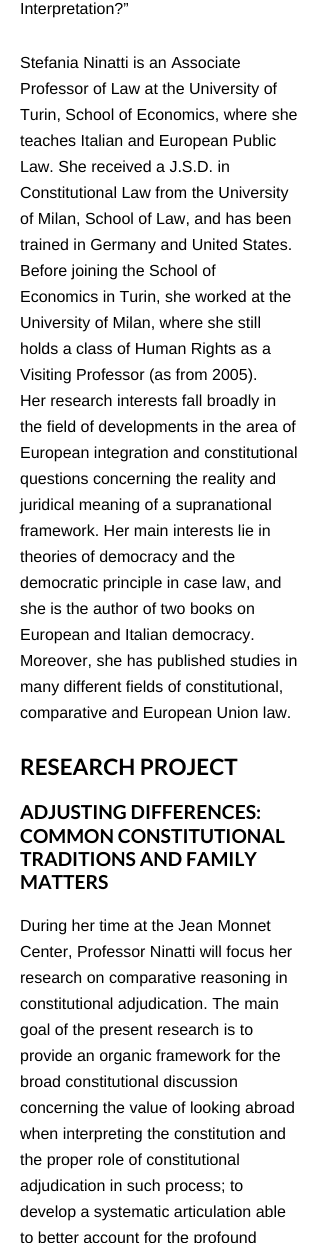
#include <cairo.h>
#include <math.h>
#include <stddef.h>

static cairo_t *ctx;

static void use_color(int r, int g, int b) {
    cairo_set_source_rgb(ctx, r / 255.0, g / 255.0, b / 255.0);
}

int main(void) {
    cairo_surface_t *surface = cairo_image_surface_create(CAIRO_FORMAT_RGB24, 318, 1243);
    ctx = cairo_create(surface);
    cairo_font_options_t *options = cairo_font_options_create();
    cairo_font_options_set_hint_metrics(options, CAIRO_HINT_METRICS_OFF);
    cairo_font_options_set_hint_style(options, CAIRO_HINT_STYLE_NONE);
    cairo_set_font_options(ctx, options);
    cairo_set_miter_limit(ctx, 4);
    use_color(255, 255, 255);
    cairo_paint(ctx);
    cairo_select_font_face(ctx, "Liberation Sans", CAIRO_FONT_SLANT_NORMAL, CAIRO_FONT_WEIGHT_NORMAL);
    cairo_set_font_size(ctx, 16);
    use_color(0, 0, 0);
    cairo_move_to(ctx, 20, 14);
    cairo_show_text(ctx, "Interpretation?”");
    cairo_move_to(ctx, 20, 68);
    cairo_show_text(ctx, "Stefania Ninatti is an Associate");
    cairo_move_to(ctx, 20, 94);
    cairo_show_text(ctx, "Professor of Law at the University of");
    cairo_move_to(ctx, 20, 120);
    cairo_show_text(ctx, "Turin, School of Economics, where she");
    cairo_move_to(ctx, 20, 146);
    cairo_show_text(ctx, "teaches Italian and European Public");
    cairo_move_to(ctx, 20, 172);
    cairo_show_text(ctx, "Law. She received a J.S.D. in");
    cairo_move_to(ctx, 20, 198);
    cairo_show_text(ctx, "Constitutional Law from the University");
    cairo_move_to(ctx, 20, 224);
    cairo_show_text(ctx, "of Milan, School of Law, and has been");
    cairo_move_to(ctx, 20, 250);
    cairo_show_text(ctx, "trained in Germany and United States.");
    cairo_move_to(ctx, 20, 276);
    cairo_show_text(ctx, "Before joining the School of");
    cairo_move_to(ctx, 20, 302);
    cairo_show_text(ctx, "Economics in Turin, she worked at the");
    cairo_move_to(ctx, 20, 328);
    cairo_show_text(ctx, "University of Milan, where she still");
    cairo_move_to(ctx, 20, 354);
    cairo_show_text(ctx, "holds a class of Human Rights as a");
    cairo_move_to(ctx, 20, 380);
    cairo_show_text(ctx, "Visiting Professor (as from 2005).");
    cairo_move_to(ctx, 20, 406);
    cairo_show_text(ctx, "Her research interests fall broadly in");
    cairo_move_to(ctx, 20, 432);
    cairo_show_text(ctx, "the field of developments in the area of");
    cairo_move_to(ctx, 20, 458);
    cairo_show_text(ctx, "European integration and constitutional");
    cairo_move_to(ctx, 20, 484);
    cairo_show_text(ctx, "questions concerning the reality and");
    cairo_move_to(ctx, 20, 510);
    cairo_show_text(ctx, "juridical meaning of a supranational");
    cairo_move_to(ctx, 20, 536);
    cairo_show_text(ctx, "framework. Her main interests lie in");
    cairo_move_to(ctx, 20, 562);
    cairo_show_text(ctx, "theories of democracy and the");
    cairo_move_to(ctx, 20, 588);
    cairo_show_text(ctx, "democratic principle in case law, and");
    cairo_move_to(ctx, 20, 614);
    cairo_show_text(ctx, "she is the author of two books on");
    cairo_move_to(ctx, 20, 640);
    cairo_show_text(ctx, "European and Italian democracy.");
    cairo_move_to(ctx, 20, 666);
    cairo_show_text(ctx, "Moreover, she has published studies in");
    cairo_move_to(ctx, 20, 692);
    cairo_show_text(ctx, "many different fields of constitutional,");
    cairo_move_to(ctx, 20, 718);
    cairo_show_text(ctx, "comparative and European Union law.");
    cairo_select_font_face(ctx, "Lato", CAIRO_FONT_SLANT_NORMAL, CAIRO_FONT_WEIGHT_BOLD);
    cairo_set_font_size(ctx, 22.5);
    cairo_move_to(ctx, 20, 775);
    cairo_show_text(ctx, "RESEARCH PROJECT");
    cairo_set_font_size(ctx, 19.25);
    cairo_move_to(ctx, 20, 819);
    cairo_show_text(ctx, "ADJUSTING DIFFERENCES:");
    cairo_move_to(ctx, 20, 843);
    cairo_show_text(ctx, "COMMON CONSTITUTIONAL");
    cairo_move_to(ctx, 20, 866);
    cairo_show_text(ctx, "TRADITIONS AND FAMILY");
    cairo_move_to(ctx, 20, 889);
    cairo_show_text(ctx, "MATTERS");
    cairo_select_font_face(ctx, "Liberation Sans", CAIRO_FONT_SLANT_NORMAL, CAIRO_FONT_WEIGHT_NORMAL);
    cairo_set_font_size(ctx, 16);
    cairo_move_to(ctx, 20, 931);
    cairo_show_text(ctx, "During her time at the Jean Monnet");
    cairo_move_to(ctx, 20, 957);
    cairo_show_text(ctx, "Center, Professor Ninatti will focus her");
    cairo_move_to(ctx, 20, 983);
    cairo_show_text(ctx, "research on comparative reasoning in");
    cairo_move_to(ctx, 20, 1009);
    cairo_show_text(ctx, "constitutional adjudication. The main");
    cairo_move_to(ctx, 20, 1035);
    cairo_show_text(ctx, "goal of the present research is to");
    cairo_move_to(ctx, 20, 1061);
    cairo_show_text(ctx, "provide an organic framework for the");
    cairo_move_to(ctx, 20, 1087);
    cairo_show_text(ctx, "broad constitutional discussion");
    cairo_move_to(ctx, 20, 1113);
    cairo_show_text(ctx, "concerning the value of looking abroad");
    cairo_move_to(ctx, 20, 1139);
    cairo_show_text(ctx, "when interpreting the constitution and");
    cairo_move_to(ctx, 20, 1165);
    cairo_show_text(ctx, "the proper role of constitutional");
    cairo_move_to(ctx, 20, 1191);
    cairo_show_text(ctx, "adjudication in such process; to");
    cairo_move_to(ctx, 20, 1217);
    cairo_show_text(ctx, "develop a systematic articulation able");
    cairo_move_to(ctx, 20, 1243);
    cairo_show_text(ctx, "to better account for the profound");
    cairo_surface_write_to_png(surface, "result.png");
    cairo_font_options_destroy(options);
    cairo_destroy(ctx);
    cairo_surface_destroy(surface);
    return 0;
}
